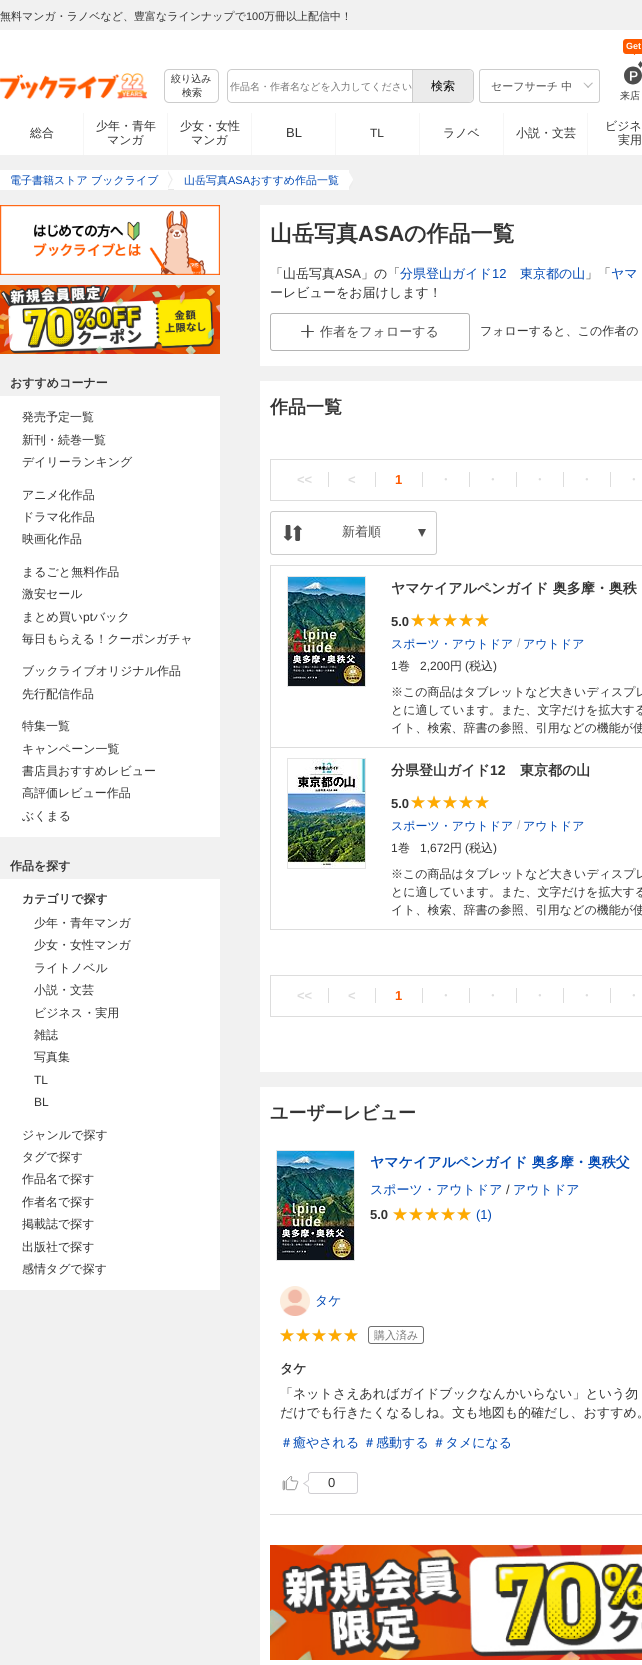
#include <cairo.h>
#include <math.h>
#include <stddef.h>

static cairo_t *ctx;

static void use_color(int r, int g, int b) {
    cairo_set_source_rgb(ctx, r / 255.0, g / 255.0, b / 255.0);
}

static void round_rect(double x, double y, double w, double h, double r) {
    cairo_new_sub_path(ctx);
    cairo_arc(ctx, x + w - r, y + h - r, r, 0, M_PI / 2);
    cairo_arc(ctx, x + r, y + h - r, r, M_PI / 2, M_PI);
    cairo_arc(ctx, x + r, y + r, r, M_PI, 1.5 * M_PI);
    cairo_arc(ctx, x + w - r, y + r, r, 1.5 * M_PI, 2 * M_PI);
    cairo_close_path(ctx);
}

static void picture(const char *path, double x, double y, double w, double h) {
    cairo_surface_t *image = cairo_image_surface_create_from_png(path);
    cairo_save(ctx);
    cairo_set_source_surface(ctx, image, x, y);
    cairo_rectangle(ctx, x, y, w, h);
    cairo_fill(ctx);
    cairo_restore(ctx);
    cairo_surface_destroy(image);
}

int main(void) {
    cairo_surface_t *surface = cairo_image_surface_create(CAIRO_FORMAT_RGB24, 642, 1665);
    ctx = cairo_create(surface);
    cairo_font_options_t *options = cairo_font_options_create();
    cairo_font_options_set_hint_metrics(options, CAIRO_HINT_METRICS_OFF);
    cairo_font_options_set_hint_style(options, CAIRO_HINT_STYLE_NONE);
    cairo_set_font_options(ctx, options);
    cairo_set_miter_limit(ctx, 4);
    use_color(241, 241, 241);
    cairo_paint(ctx);
    use_color(255, 255, 255);
    cairo_rectangle(ctx, 0, 30, 642, 125);
    cairo_fill(ctx);
    cairo_select_font_face(ctx, "WenQuanYi Zen Hei Medium", CAIRO_FONT_SLANT_NORMAL, CAIRO_FONT_WEIGHT_NORMAL);
    cairo_set_font_size(ctx, 11);
    use_color(51, 51, 51);
    cairo_move_to(ctx, 0, 20);
    cairo_show_text(ctx, "無料マンガ・ラノベなど、豊富なラインナップで");
    cairo_select_font_face(ctx, "Liberation Sans", CAIRO_FONT_SLANT_NORMAL, CAIRO_FONT_WEIGHT_NORMAL);
    cairo_move_to(ctx, 246, 20);
    cairo_show_text(ctx, "100");
    cairo_select_font_face(ctx, "WenQuanYi Zen Hei Medium", CAIRO_FONT_SLANT_NORMAL, CAIRO_FONT_WEIGHT_NORMAL);
    cairo_move_to(ctx, 264, 20);
    cairo_show_text(ctx, "万冊以上配信中！");
    picture("img1.png", 0, 73, 148, 27);
    round_rect(164.5, 69.5, 54, 33, 4.5);
    use_color(204, 204, 204);
    cairo_set_line_width(ctx, 1);
    cairo_stroke(ctx);
    cairo_set_font_size(ctx, 10);
    use_color(51, 51, 51);
    cairo_move_to(ctx, 171, 82);
    cairo_show_text(ctx, "絞り込み");
    cairo_move_to(ctx, 182, 96);
    cairo_show_text(ctx, "検索");
    round_rect(227.5, 69.5, 246, 33, 4.5);
    use_color(204, 204, 204);
    cairo_stroke(ctx);
    use_color(255, 255, 255);
    cairo_new_path(ctx);
    cairo_move_to(ctx, 233, 70);
    cairo_line_to(ctx, 412, 70);
    cairo_line_to(ctx, 412, 102);
    cairo_line_to(ctx, 233, 102);
    cairo_curve_to(ctx, 230, 102, 228, 100, 228, 97);
    cairo_line_to(ctx, 228, 75);
    cairo_curve_to(ctx, 228, 72, 230, 70, 233, 70);
    cairo_close_path(ctx);
    cairo_fill(ctx);
    use_color(117, 117, 117);
    cairo_move_to(ctx, 230, 90);
    cairo_show_text(ctx, "作品名・作者名などを入力してください");
    use_color(235, 235, 235);
    cairo_new_path(ctx);
    cairo_move_to(ctx, 412, 70);
    cairo_line_to(ctx, 468, 70);
    cairo_curve_to(ctx, 471, 70, 473, 72, 473, 75);
    cairo_line_to(ctx, 473, 97);
    cairo_curve_to(ctx, 473, 100, 471, 102, 468, 102);
    cairo_line_to(ctx, 412, 102);
    cairo_close_path(ctx);
    cairo_fill(ctx);
    use_color(204, 204, 204);
    cairo_rectangle(ctx, 412, 70, 1, 32);
    cairo_fill(ctx);
    cairo_set_font_size(ctx, 12);
    use_color(0, 0, 0);
    cairo_move_to(ctx, 431, 90);
    cairo_show_text(ctx, "検索");
    round_rect(479.5, 69.5, 120, 33, 2.5);
    use_color(204, 204, 204);
    cairo_stroke(ctx);
    cairo_set_font_size(ctx, 11);
    use_color(77, 77, 77);
    cairo_move_to(ctx, 491, 90);
    cairo_show_text(ctx, "セーフサーチ 中");
    use_color(180, 180, 180);
    cairo_new_path(ctx);
    cairo_move_to(ctx, 593, 83);
    cairo_line_to(ctx, 588, 88);
    cairo_line_to(ctx, 587.5, 87);
    cairo_line_to(ctx, 592, 82.5);
    cairo_close_path(ctx);
    cairo_fill(ctx);
    cairo_new_path(ctx);
    cairo_move_to(ctx, 589, 87);
    cairo_line_to(ctx, 588, 88);
    cairo_line_to(ctx, 583.5, 83);
    cairo_line_to(ctx, 584, 82.5);
    cairo_close_path(ctx);
    cairo_fill(ctx);
    use_color(255, 90, 0);
    round_rect(623, 39, 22, 15, 3);
    cairo_fill(ctx);
    cairo_select_font_face(ctx, "Liberation Sans", CAIRO_FONT_SLANT_NORMAL, CAIRO_FONT_WEIGHT_BOLD);
    cairo_set_font_size(ctx, 9);
    use_color(255, 255, 255);
    cairo_move_to(ctx, 626, 49);
    cairo_show_text(ctx, "Get");
    picture("img2.png", 633, 54, 3, 1);
    picture("img3.png", 624, 61, 18, 24);
    cairo_select_font_face(ctx, "WenQuanYi Zen Hei Medium", CAIRO_FONT_SLANT_NORMAL, CAIRO_FONT_WEIGHT_NORMAL);
    cairo_set_font_size(ctx, 10);
    use_color(51, 51, 51);
    cairo_move_to(ctx, 620, 99);
    cairo_show_text(ctx, "来店");
    use_color(246, 246, 246);
    cairo_rectangle(ctx, 83, 113, 1, 42);
    cairo_fill(ctx);
    cairo_set_font_size(ctx, 12);
    use_color(51, 51, 51);
    cairo_move_to(ctx, 30, 137);
    cairo_show_text(ctx, "総合");
    use_color(246, 246, 246);
    cairo_rectangle(ctx, 167, 113, 1, 42);
    cairo_fill(ctx);
    use_color(51, 51, 51);
    cairo_move_to(ctx, 96, 130);
    cairo_show_text(ctx, "少年・青年");
    cairo_move_to(ctx, 107, 144);
    cairo_show_text(ctx, "マンガ");
    use_color(246, 246, 246);
    cairo_rectangle(ctx, 251, 113, 1, 42);
    cairo_fill(ctx);
    use_color(51, 51, 51);
    cairo_move_to(ctx, 180, 130);
    cairo_show_text(ctx, "少女・女性");
    cairo_move_to(ctx, 191, 144);
    cairo_show_text(ctx, "マンガ");
    use_color(246, 246, 246);
    cairo_rectangle(ctx, 335, 113, 1, 42);
    cairo_fill(ctx);
    cairo_select_font_face(ctx, "Liberation Sans", CAIRO_FONT_SLANT_NORMAL, CAIRO_FONT_WEIGHT_NORMAL);
    cairo_set_font_size(ctx, 13);
    use_color(51, 51, 51);
    cairo_move_to(ctx, 286, 137);
    cairo_show_text(ctx, "BL");
    use_color(246, 246, 246);
    cairo_rectangle(ctx, 419, 113, 1, 42);
    cairo_fill(ctx);
    cairo_set_font_size(ctx, 12);
    use_color(51, 51, 51);
    cairo_move_to(ctx, 370, 137);
    cairo_show_text(ctx, "TL");
    use_color(246, 246, 246);
    cairo_rectangle(ctx, 503, 113, 1, 42);
    cairo_fill(ctx);
    cairo_select_font_face(ctx, "WenQuanYi Zen Hei Medium", CAIRO_FONT_SLANT_NORMAL, CAIRO_FONT_WEIGHT_NORMAL);
    use_color(51, 51, 51);
    cairo_move_to(ctx, 443, 137);
    cairo_show_text(ctx, "ラノベ");
    use_color(246, 246, 246);
    cairo_rectangle(ctx, 587, 113, 1, 42);
    cairo_fill(ctx);
    use_color(51, 51, 51);
    cairo_move_to(ctx, 516, 137);
    cairo_show_text(ctx, "小説・文芸");
    cairo_move_to(ctx, 605, 130);
    cairo_show_text(ctx, "ビジネ");
    cairo_move_to(ctx, 618, 144);
    cairo_show_text(ctx, "実用");
    picture("img4.png", 168, 170, 6, 20);
    use_color(255, 255, 255);
    cairo_rectangle(ctx, 0, 170, 168, 20);
    cairo_fill(ctx);
    cairo_set_font_size(ctx, 11);
    use_color(0, 72, 180);
    cairo_move_to(ctx, 10, 184);
    cairo_show_text(ctx, "電子書籍ストア ブックライブ");
    picture("img5.png", 349, 171, 4, 18);
    use_color(255, 255, 255);
    cairo_rectangle(ctx, 174, 170, 175, 20);
    cairo_fill(ctx);
    use_color(0, 72, 180);
    cairo_move_to(ctx, 184, 184);
    cairo_show_text(ctx, "山岳写真");
    cairo_select_font_face(ctx, "Liberation Sans", CAIRO_FONT_SLANT_NORMAL, CAIRO_FONT_WEIGHT_NORMAL);
    cairo_move_to(ctx, 228, 184);
    cairo_show_text(ctx, "ASA");
    cairo_select_font_face(ctx, "WenQuanYi Zen Hei Medium", CAIRO_FONT_SLANT_NORMAL, CAIRO_FONT_WEIGHT_NORMAL);
    cairo_move_to(ctx, 250, 184);
    cairo_show_text(ctx, "おすすめ作品一覧");
    picture("img6.png", 0, 205, 220, 70);
    picture("img7.png", 0, 285, 220, 69);
    use_color(255, 255, 255);
    cairo_rectangle(ctx, 0, 396, 220, 894);
    cairo_fill(ctx);
    cairo_select_font_face(ctx, "WenQuanYi Zen Hei", CAIRO_FONT_SLANT_NORMAL, CAIRO_FONT_WEIGHT_BOLD);
    cairo_set_font_size(ctx, 12);
    use_color(51, 51, 51);
    cairo_move_to(ctx, 10, 387);
    cairo_show_text(ctx, "おすすめコーナー");
    cairo_select_font_face(ctx, "WenQuanYi Zen Hei Medium", CAIRO_FONT_SLANT_NORMAL, CAIRO_FONT_WEIGHT_NORMAL);
    cairo_move_to(ctx, 22, 421);
    cairo_show_text(ctx, "発売予定一覧");
    cairo_move_to(ctx, 22, 444);
    cairo_show_text(ctx, "新刊・続巻一覧");
    cairo_move_to(ctx, 22, 466);
    cairo_show_text(ctx, "デイリーランキング");
    cairo_move_to(ctx, 22, 499);
    cairo_show_text(ctx, "アニメ化作品");
    cairo_move_to(ctx, 22, 521);
    cairo_show_text(ctx, "ドラマ化作品");
    cairo_move_to(ctx, 22, 543);
    cairo_show_text(ctx, "映画化作品");
    cairo_move_to(ctx, 22, 576);
    cairo_show_text(ctx, "まるごと無料作品");
    cairo_move_to(ctx, 22, 598);
    cairo_show_text(ctx, "激安セール");
    cairo_move_to(ctx, 22, 621);
    cairo_show_text(ctx, "まとめ買い");
    cairo_select_font_face(ctx, "Liberation Sans", CAIRO_FONT_SLANT_NORMAL, CAIRO_FONT_WEIGHT_NORMAL);
    cairo_move_to(ctx, 83, 621);
    cairo_show_text(ctx, "pt");
    cairo_select_font_face(ctx, "WenQuanYi Zen Hei Medium", CAIRO_FONT_SLANT_NORMAL, CAIRO_FONT_WEIGHT_NORMAL);
    cairo_move_to(ctx, 93, 621);
    cairo_show_text(ctx, "バック");
    cairo_move_to(ctx, 22, 643);
    cairo_show_text(ctx, "毎日もらえる！クーポンガチャ");
    cairo_move_to(ctx, 22, 675);
    cairo_show_text(ctx, "ブックライブオリジナル作品");
    cairo_move_to(ctx, 22, 698);
    cairo_show_text(ctx, "先行配信作品");
    cairo_move_to(ctx, 22, 730);
    cairo_show_text(ctx, "特集一覧");
    cairo_move_to(ctx, 22, 753);
    cairo_show_text(ctx, "キャンペーン一覧");
    cairo_move_to(ctx, 22, 775);
    cairo_show_text(ctx, "書店員おすすめレビュー");
    cairo_move_to(ctx, 22, 797);
    cairo_show_text(ctx, "高評価レビュー作品");
    cairo_move_to(ctx, 22, 820);
    cairo_show_text(ctx, "ぶくまる");
    use_color(241, 241, 241);
    cairo_rectangle(ctx, 0, 837, 220, 42);
    cairo_fill(ctx);
    cairo_select_font_face(ctx, "WenQuanYi Zen Hei", CAIRO_FONT_SLANT_NORMAL, CAIRO_FONT_WEIGHT_BOLD);
    use_color(51, 51, 51);
    cairo_move_to(ctx, 10, 870);
    cairo_show_text(ctx, "作品を探す");
    cairo_move_to(ctx, 22, 903);
    cairo_show_text(ctx, "カテゴリで探す");
    cairo_select_font_face(ctx, "WenQuanYi Zen Hei Medium", CAIRO_FONT_SLANT_NORMAL, CAIRO_FONT_WEIGHT_NORMAL);
    cairo_move_to(ctx, 34, 927);
    cairo_show_text(ctx, "少年・青年マンガ");
    cairo_move_to(ctx, 34, 949);
    cairo_show_text(ctx, "少女・女性マンガ");
    cairo_move_to(ctx, 34, 972);
    cairo_show_text(ctx, "ライトノベル");
    cairo_move_to(ctx, 34, 994);
    cairo_show_text(ctx, "小説・文芸");
    cairo_move_to(ctx, 34, 1017);
    cairo_show_text(ctx, "ビジネス・実用");
    cairo_move_to(ctx, 34, 1039);
    cairo_show_text(ctx, "雑誌");
    cairo_move_to(ctx, 34, 1061);
    cairo_show_text(ctx, "写真集");
    cairo_select_font_face(ctx, "Liberation Sans", CAIRO_FONT_SLANT_NORMAL, CAIRO_FONT_WEIGHT_NORMAL);
    cairo_move_to(ctx, 34, 1084);
    cairo_show_text(ctx, "TL");
    cairo_move_to(ctx, 34, 1106);
    cairo_show_text(ctx, "BL");
    cairo_select_font_face(ctx, "WenQuanYi Zen Hei Medium", CAIRO_FONT_SLANT_NORMAL, CAIRO_FONT_WEIGHT_NORMAL);
    cairo_move_to(ctx, 22, 1139);
    cairo_show_text(ctx, "ジャンルで探す");
    cairo_move_to(ctx, 22, 1161);
    cairo_show_text(ctx, "タグで探す");
    cairo_move_to(ctx, 22, 1183);
    cairo_show_text(ctx, "作品名で探す");
    cairo_move_to(ctx, 22, 1206);
    cairo_show_text(ctx, "作者名で探す");
    cairo_move_to(ctx, 22, 1228);
    cairo_show_text(ctx, "掲載誌で探す");
    cairo_move_to(ctx, 22, 1251);
    cairo_show_text(ctx, "出版社で探す");
    cairo_move_to(ctx, 22, 1273);
    cairo_show_text(ctx, "感情タグで探す");
    use_color(255, 255, 255);
    cairo_rectangle(ctx, 260, 205, 382, 161);
    cairo_fill(ctx);
    cairo_select_font_face(ctx, "WenQuanYi Zen Hei", CAIRO_FONT_SLANT_NORMAL, CAIRO_FONT_WEIGHT_BOLD);
    cairo_set_font_size(ctx, 22);
    use_color(51, 51, 51);
    cairo_move_to(ctx, 270, 241);
    cairo_show_text(ctx, "山岳写真");
    cairo_select_font_face(ctx, "Liberation Sans", CAIRO_FONT_SLANT_NORMAL, CAIRO_FONT_WEIGHT_BOLD);
    cairo_move_to(ctx, 358, 241);
    cairo_show_text(ctx, "ASA");
    cairo_select_font_face(ctx, "WenQuanYi Zen Hei", CAIRO_FONT_SLANT_NORMAL, CAIRO_FONT_WEIGHT_BOLD);
    cairo_move_to(ctx, 404, 241);
    cairo_show_text(ctx, "の作品一覧");
    cairo_select_font_face(ctx, "WenQuanYi Zen Hei Medium", CAIRO_FONT_SLANT_NORMAL, CAIRO_FONT_WEIGHT_NORMAL);
    cairo_set_font_size(ctx, 13);
    cairo_move_to(ctx, 270, 278);
    cairo_show_text(ctx, "「山岳写真");
    cairo_select_font_face(ctx, "Liberation Sans", CAIRO_FONT_SLANT_NORMAL, CAIRO_FONT_WEIGHT_NORMAL);
    cairo_move_to(ctx, 335, 278);
    cairo_show_text(ctx, "ASA");
    cairo_select_font_face(ctx, "WenQuanYi Zen Hei Medium", CAIRO_FONT_SLANT_NORMAL, CAIRO_FONT_WEIGHT_NORMAL);
    cairo_move_to(ctx, 361, 278);
    cairo_show_text(ctx, "」の「");
    use_color(0, 72, 180);
    cairo_move_to(ctx, 400, 278);
    cairo_show_text(ctx, "分県登山ガイド");
    cairo_select_font_face(ctx, "Liberation Sans", CAIRO_FONT_SLANT_NORMAL, CAIRO_FONT_WEIGHT_NORMAL);
    cairo_move_to(ctx, 492, 278);
    cairo_show_text(ctx, "12");
    cairo_select_font_face(ctx, "WenQuanYi Zen Hei Medium", CAIRO_FONT_SLANT_NORMAL, CAIRO_FONT_WEIGHT_NORMAL);
    cairo_move_to(ctx, 520, 278);
    cairo_show_text(ctx, "東京都の山");
    use_color(51, 51, 51);
    cairo_move_to(ctx, 585, 278);
    cairo_show_text(ctx, "」「");
    use_color(0, 72, 180);
    cairo_move_to(ctx, 611, 278);
    cairo_show_text(ctx, "ヤマ");
    use_color(51, 51, 51);
    cairo_move_to(ctx, 270, 297);
    cairo_show_text(ctx, "ーレビューをお届けします！");
    round_rect(270.5, 313.5, 199, 37, 2.5);
    use_color(180, 180, 180);
    cairo_stroke(ctx);
    use_color(77, 77, 77);
    round_rect(301, 331, 13, 1, 0.5);
    cairo_fill(ctx);
    cairo_new_path(ctx);
    cairo_move_to(ctx, 308.5, 325.5);
    cairo_curve_to(ctx, 308.5, 327, 309, 337.5, 308, 338);
    cairo_curve_to(ctx, 306.5, 338.5, 307, 335.5, 307, 335);
    cairo_line_to(ctx, 307, 325);
    cairo_curve_to(ctx, 307.5, 324.5, 308.5, 325, 308.5, 325.5);
    cairo_close_path(ctx);
    cairo_fill(ctx);
    cairo_move_to(ctx, 320, 336);
    cairo_show_text(ctx, "作者をフォローする");
    cairo_set_font_size(ctx, 12);
    use_color(51, 51, 51);
    cairo_move_to(ctx, 480, 335);
    cairo_show_text(ctx, "フォローすると、この作者の");
    use_color(255, 255, 255);
    cairo_rectangle(ctx, 260, 381, 382, 691);
    cairo_fill(ctx);
    cairo_select_font_face(ctx, "WenQuanYi Zen Hei", CAIRO_FONT_SLANT_NORMAL, CAIRO_FONT_WEIGHT_BOLD);
    cairo_set_font_size(ctx, 18);
    use_color(51, 51, 51);
    cairo_move_to(ctx, 270, 413);
    cairo_show_text(ctx, "作品一覧");
    cairo_rectangle(ctx, 270.5, 459.5, 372, 41);
    use_color(221, 221, 221);
    cairo_stroke(ctx);
    cairo_select_font_face(ctx, "Liberation Sans", CAIRO_FONT_SLANT_NORMAL, CAIRO_FONT_WEIGHT_BOLD);
    cairo_set_font_size(ctx, 13);
    cairo_move_to(ctx, 297, 484);
    cairo_show_text(ctx, "<<");
    cairo_rectangle(ctx, 328, 472, 1, 15);
    cairo_fill(ctx);
    cairo_move_to(ctx, 348, 484);
    cairo_show_text(ctx, "<");
    cairo_rectangle(ctx, 375, 472, 1, 15);
    cairo_fill(ctx);
    use_color(255, 90, 0);
    cairo_move_to(ctx, 395, 484);
    cairo_show_text(ctx, "1");
    use_color(221, 221, 221);
    cairo_rectangle(ctx, 422, 472, 1, 15);
    cairo_fill(ctx);
    cairo_select_font_face(ctx, "WenQuanYi Zen Hei", CAIRO_FONT_SLANT_NORMAL, CAIRO_FONT_WEIGHT_BOLD);
    cairo_move_to(ctx, 439, 484);
    cairo_show_text(ctx, "・");
    cairo_rectangle(ctx, 469, 472, 1, 15);
    cairo_fill(ctx);
    cairo_move_to(ctx, 486, 484);
    cairo_show_text(ctx, "・");
    cairo_rectangle(ctx, 516, 472, 1, 15);
    cairo_fill(ctx);
    cairo_move_to(ctx, 533, 484);
    cairo_show_text(ctx, "・");
    cairo_rectangle(ctx, 563, 472, 1, 15);
    cairo_fill(ctx);
    cairo_move_to(ctx, 580, 484);
    cairo_show_text(ctx, "・");
    cairo_rectangle(ctx, 610, 472, 1, 15);
    cairo_fill(ctx);
    cairo_move_to(ctx, 627, 484);
    cairo_show_text(ctx, "・");
    round_rect(270.5, 511.5, 166, 43, 2.5);
    use_color(204, 204, 204);
    cairo_stroke(ctx);
    picture("img8.png", 283, 525, 19, 16);
    cairo_select_font_face(ctx, "WenQuanYi Zen Hei Medium", CAIRO_FONT_SLANT_NORMAL, CAIRO_FONT_WEIGHT_NORMAL);
    use_color(77, 77, 77);
    cairo_move_to(ctx, 342, 536);
    cairo_show_text(ctx, "新着順");
    cairo_new_path(ctx);
    cairo_move_to(ctx, 418, 529);
    cairo_line_to(ctx, 426, 529);
    cairo_line_to(ctx, 422, 537);
    cairo_close_path(ctx);
    cairo_fill(ctx);
    use_color(221, 221, 221);
    cairo_rectangle(ctx, 270, 565, 372, 1);
    cairo_fill(ctx);
    cairo_rectangle(ctx, 270, 565, 1, 365);
    cairo_fill(ctx);
    cairo_rectangle(ctx, 271, 747, 371, 1);
    cairo_fill(ctx);
    cairo_rectangle(ctx, 287.5, 576.5, 78, 110);
    use_color(229, 229, 229);
    cairo_stroke(ctx);
    picture("img9.png", 288, 577, 77, 109);
    cairo_select_font_face(ctx, "WenQuanYi Zen Hei", CAIRO_FONT_SLANT_NORMAL, CAIRO_FONT_WEIGHT_BOLD);
    cairo_set_font_size(ctx, 14);
    use_color(51, 51, 51);
    cairo_move_to(ctx, 391, 593);
    cairo_show_text(ctx, "ヤマケイアルペンガイド 奥多摩・奥秩");
    cairo_select_font_face(ctx, "Liberation Sans", CAIRO_FONT_SLANT_NORMAL, CAIRO_FONT_WEIGHT_BOLD);
    cairo_set_font_size(ctx, 13);
    cairo_move_to(ctx, 391, 626);
    cairo_show_text(ctx, "5.0");
    picture("img11.png", 411, 614, 14, 13);
    picture("img10.png", 411, 613, 14, 14);
    picture("img11.png", 427, 614, 14, 13);
    picture("img10.png", 427, 613, 14, 14);
    picture("img11.png", 443, 614, 14, 13);
    picture("img10.png", 443, 613, 14, 14);
    picture("img11.png", 459, 614, 14, 13);
    picture("img10.png", 459, 613, 14, 14);
    picture("img11.png", 475, 614, 14, 13);
    picture("img10.png", 475, 613, 14, 14);
    cairo_select_font_face(ctx, "WenQuanYi Zen Hei Medium", CAIRO_FONT_SLANT_NORMAL, CAIRO_FONT_WEIGHT_NORMAL);
    cairo_set_font_size(ctx, 12);
    use_color(0, 72, 180);
    cairo_move_to(ctx, 391, 648);
    cairo_show_text(ctx, "スポーツ・アウトドア");
    cairo_select_font_face(ctx, "Liberation Sans", CAIRO_FONT_SLANT_NORMAL, CAIRO_FONT_WEIGHT_NORMAL);
    use_color(170, 170, 170);
    cairo_move_to(ctx, 517, 647);
    cairo_show_text(ctx, "/");
    cairo_select_font_face(ctx, "WenQuanYi Zen Hei Medium", CAIRO_FONT_SLANT_NORMAL, CAIRO_FONT_WEIGHT_NORMAL);
    use_color(0, 72, 180);
    cairo_move_to(ctx, 523, 648);
    cairo_show_text(ctx, "アウトドア");
    cairo_select_font_face(ctx, "Liberation Sans", CAIRO_FONT_SLANT_NORMAL, CAIRO_FONT_WEIGHT_NORMAL);
    use_color(51, 51, 51);
    cairo_move_to(ctx, 391, 670);
    cairo_show_text(ctx, "1");
    cairo_select_font_face(ctx, "WenQuanYi Zen Hei Medium", CAIRO_FONT_SLANT_NORMAL, CAIRO_FONT_WEIGHT_NORMAL);
    cairo_move_to(ctx, 398, 670);
    cairo_show_text(ctx, "巻");
    cairo_select_font_face(ctx, "Liberation Sans", CAIRO_FONT_SLANT_NORMAL, CAIRO_FONT_WEIGHT_NORMAL);
    cairo_move_to(ctx, 420, 670);
    cairo_show_text(ctx, "2,200");
    cairo_select_font_face(ctx, "WenQuanYi Zen Hei Medium", CAIRO_FONT_SLANT_NORMAL, CAIRO_FONT_WEIGHT_NORMAL);
    cairo_move_to(ctx, 450, 670);
    cairo_show_text(ctx, "円");
    cairo_select_font_face(ctx, "Liberation Sans", CAIRO_FONT_SLANT_NORMAL, CAIRO_FONT_WEIGHT_NORMAL);
    cairo_move_to(ctx, 465, 670);
    cairo_show_text(ctx, "(");
    cairo_select_font_face(ctx, "WenQuanYi Zen Hei Medium", CAIRO_FONT_SLANT_NORMAL, CAIRO_FONT_WEIGHT_NORMAL);
    cairo_move_to(ctx, 469, 670);
    cairo_show_text(ctx, "税込");
    cairo_select_font_face(ctx, "Liberation Sans", CAIRO_FONT_SLANT_NORMAL, CAIRO_FONT_WEIGHT_NORMAL);
    cairo_move_to(ctx, 493, 670);
    cairo_show_text(ctx, ")");
    cairo_select_font_face(ctx, "WenQuanYi Zen Hei Medium", CAIRO_FONT_SLANT_NORMAL, CAIRO_FONT_WEIGHT_NORMAL);
    cairo_move_to(ctx, 391, 696);
    cairo_show_text(ctx, "※この商品はタブレットなど大きいディスプレ");
    cairo_move_to(ctx, 391, 714);
    cairo_show_text(ctx, "とに適しています。また、文字だけを拡大する");
    cairo_move_to(ctx, 391, 732);
    cairo_show_text(ctx, "イト、検索、辞書の参照、引用などの機能が使");
    use_color(221, 221, 221);
    cairo_rectangle(ctx, 271, 929, 371, 1);
    cairo_fill(ctx);
    cairo_rectangle(ctx, 287.5, 758.5, 78, 110);
    use_color(229, 229, 229);
    cairo_stroke(ctx);
    picture("img12.png", 288, 759, 77, 109);
    cairo_select_font_face(ctx, "WenQuanYi Zen Hei", CAIRO_FONT_SLANT_NORMAL, CAIRO_FONT_WEIGHT_BOLD);
    cairo_set_font_size(ctx, 14);
    use_color(51, 51, 51);
    cairo_move_to(ctx, 391, 775);
    cairo_show_text(ctx, "分県登山ガイド");
    cairo_select_font_face(ctx, "Liberation Sans", CAIRO_FONT_SLANT_NORMAL, CAIRO_FONT_WEIGHT_BOLD);
    cairo_move_to(ctx, 490, 775);
    cairo_show_text(ctx, "12");
    cairo_select_font_face(ctx, "WenQuanYi Zen Hei", CAIRO_FONT_SLANT_NORMAL, CAIRO_FONT_WEIGHT_BOLD);
    cairo_move_to(ctx, 520, 775);
    cairo_show_text(ctx, "東京都の山");
    cairo_select_font_face(ctx, "Liberation Sans", CAIRO_FONT_SLANT_NORMAL, CAIRO_FONT_WEIGHT_BOLD);
    cairo_set_font_size(ctx, 13);
    cairo_move_to(ctx, 391, 808);
    cairo_show_text(ctx, "5.0");
    picture("img11.png", 411, 796, 14, 13);
    picture("img10.png", 411, 795, 14, 14);
    picture("img11.png", 427, 796, 14, 13);
    picture("img10.png", 427, 795, 14, 14);
    picture("img11.png", 443, 796, 14, 13);
    picture("img10.png", 443, 795, 14, 14);
    picture("img11.png", 459, 796, 14, 13);
    picture("img10.png", 459, 795, 14, 14);
    picture("img11.png", 475, 796, 14, 13);
    picture("img10.png", 475, 795, 14, 14);
    cairo_select_font_face(ctx, "WenQuanYi Zen Hei Medium", CAIRO_FONT_SLANT_NORMAL, CAIRO_FONT_WEIGHT_NORMAL);
    cairo_set_font_size(ctx, 12);
    use_color(0, 72, 180);
    cairo_move_to(ctx, 391, 830);
    cairo_show_text(ctx, "スポーツ・アウトドア");
    cairo_select_font_face(ctx, "Liberation Sans", CAIRO_FONT_SLANT_NORMAL, CAIRO_FONT_WEIGHT_NORMAL);
    use_color(170, 170, 170);
    cairo_move_to(ctx, 517, 829);
    cairo_show_text(ctx, "/");
    cairo_select_font_face(ctx, "WenQuanYi Zen Hei Medium", CAIRO_FONT_SLANT_NORMAL, CAIRO_FONT_WEIGHT_NORMAL);
    use_color(0, 72, 180);
    cairo_move_to(ctx, 523, 830);
    cairo_show_text(ctx, "アウトドア");
    cairo_select_font_face(ctx, "Liberation Sans", CAIRO_FONT_SLANT_NORMAL, CAIRO_FONT_WEIGHT_NORMAL);
    use_color(51, 51, 51);
    cairo_move_to(ctx, 391, 852);
    cairo_show_text(ctx, "1");
    cairo_select_font_face(ctx, "WenQuanYi Zen Hei Medium", CAIRO_FONT_SLANT_NORMAL, CAIRO_FONT_WEIGHT_NORMAL);
    cairo_move_to(ctx, 398, 852);
    cairo_show_text(ctx, "巻");
    cairo_select_font_face(ctx, "Liberation Sans", CAIRO_FONT_SLANT_NORMAL, CAIRO_FONT_WEIGHT_NORMAL);
    cairo_move_to(ctx, 420, 852);
    cairo_show_text(ctx, "1,672");
    cairo_select_font_face(ctx, "WenQuanYi Zen Hei Medium", CAIRO_FONT_SLANT_NORMAL, CAIRO_FONT_WEIGHT_NORMAL);
    cairo_move_to(ctx, 450, 852);
    cairo_show_text(ctx, "円");
    cairo_select_font_face(ctx, "Liberation Sans", CAIRO_FONT_SLANT_NORMAL, CAIRO_FONT_WEIGHT_NORMAL);
    cairo_move_to(ctx, 465, 852);
    cairo_show_text(ctx, "(");
    cairo_select_font_face(ctx, "WenQuanYi Zen Hei Medium", CAIRO_FONT_SLANT_NORMAL, CAIRO_FONT_WEIGHT_NORMAL);
    cairo_move_to(ctx, 469, 852);
    cairo_show_text(ctx, "税込");
    cairo_select_font_face(ctx, "Liberation Sans", CAIRO_FONT_SLANT_NORMAL, CAIRO_FONT_WEIGHT_NORMAL);
    cairo_move_to(ctx, 493, 852);
    cairo_show_text(ctx, ")");
    cairo_select_font_face(ctx, "WenQuanYi Zen Hei Medium", CAIRO_FONT_SLANT_NORMAL, CAIRO_FONT_WEIGHT_NORMAL);
    cairo_move_to(ctx, 391, 878);
    cairo_show_text(ctx, "※この商品はタブレットなど大きいディスプレ");
    cairo_move_to(ctx, 391, 896);
    cairo_show_text(ctx, "とに適しています。また、文字だけを拡大する");
    cairo_move_to(ctx, 391, 914);
    cairo_show_text(ctx, "イト、検索、辞書の参照、引用などの機能が使");
    cairo_rectangle(ctx, 270.5, 975.5, 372, 41);
    use_color(221, 221, 221);
    cairo_stroke(ctx);
    cairo_select_font_face(ctx, "Liberation Sans", CAIRO_FONT_SLANT_NORMAL, CAIRO_FONT_WEIGHT_BOLD);
    cairo_set_font_size(ctx, 13);
    cairo_move_to(ctx, 297, 1000);
    cairo_show_text(ctx, "<<");
    cairo_rectangle(ctx, 328, 988, 1, 15);
    cairo_fill(ctx);
    cairo_move_to(ctx, 348, 1000);
    cairo_show_text(ctx, "<");
    cairo_rectangle(ctx, 375, 988, 1, 15);
    cairo_fill(ctx);
    use_color(255, 90, 0);
    cairo_move_to(ctx, 395, 1000);
    cairo_show_text(ctx, "1");
    use_color(221, 221, 221);
    cairo_rectangle(ctx, 422, 988, 1, 15);
    cairo_fill(ctx);
    cairo_select_font_face(ctx, "WenQuanYi Zen Hei", CAIRO_FONT_SLANT_NORMAL, CAIRO_FONT_WEIGHT_BOLD);
    cairo_move_to(ctx, 439, 1000);
    cairo_show_text(ctx, "・");
    cairo_rectangle(ctx, 469, 988, 1, 15);
    cairo_fill(ctx);
    cairo_move_to(ctx, 486, 1000);
    cairo_show_text(ctx, "・");
    cairo_rectangle(ctx, 516, 988, 1, 15);
    cairo_fill(ctx);
    cairo_move_to(ctx, 533, 1000);
    cairo_show_text(ctx, "・");
    cairo_rectangle(ctx, 563, 988, 1, 15);
    cairo_fill(ctx);
    cairo_move_to(ctx, 580, 1000);
    cairo_show_text(ctx, "・");
    cairo_rectangle(ctx, 610, 988, 1, 15);
    cairo_fill(ctx);
    cairo_move_to(ctx, 627, 1000);
    cairo_show_text(ctx, "・");
    use_color(255, 255, 255);
    cairo_rectangle(ctx, 260, 1087, 382, 578);
    cairo_fill(ctx);
    cairo_set_font_size(ctx, 18);
    use_color(51, 51, 51);
    cairo_move_to(ctx, 270, 1119);
    cairo_show_text(ctx, "ユーザーレビュー");
    use_color(221, 221, 221);
    cairo_rectangle(ctx, 270, 1514, 372, 1);
    cairo_fill(ctx);
    cairo_rectangle(ctx, 276.5, 1150.5, 78, 110);
    use_color(229, 229, 229);
    cairo_stroke(ctx);
    picture("img9.png", 277, 1151, 77, 109);
    cairo_set_font_size(ctx, 14);
    use_color(0, 72, 180);
    cairo_move_to(ctx, 370, 1167);
    cairo_show_text(ctx, "ヤマケイアルペンガイド 奥多摩・奥秩父");
    cairo_select_font_face(ctx, "WenQuanYi Zen Hei Medium", CAIRO_FONT_SLANT_NORMAL, CAIRO_FONT_WEIGHT_NORMAL);
    cairo_set_font_size(ctx, 13);
    cairo_move_to(ctx, 370, 1194);
    cairo_show_text(ctx, "スポーツ・アウトドア");
    cairo_select_font_face(ctx, "Liberation Sans", CAIRO_FONT_SLANT_NORMAL, CAIRO_FONT_WEIGHT_NORMAL);
    use_color(51, 51, 51);
    cairo_move_to(ctx, 506, 1194);
    cairo_show_text(ctx, "/");
    cairo_select_font_face(ctx, "WenQuanYi Zen Hei Medium", CAIRO_FONT_SLANT_NORMAL, CAIRO_FONT_WEIGHT_NORMAL);
    use_color(0, 72, 180);
    cairo_move_to(ctx, 513, 1194);
    cairo_show_text(ctx, "アウトドア");
    cairo_select_font_face(ctx, "Liberation Sans", CAIRO_FONT_SLANT_NORMAL, CAIRO_FONT_WEIGHT_BOLD);
    use_color(51, 51, 51);
    cairo_move_to(ctx, 370, 1219);
    cairo_show_text(ctx, "5.0");
    picture("img11.png", 393, 1208, 14, 13);
    picture("img10.png", 393, 1207, 14, 14);
    picture("img11.png", 409, 1208, 14, 13);
    picture("img10.png", 409, 1207, 14, 14);
    picture("img11.png", 425, 1208, 14, 13);
    picture("img10.png", 425, 1207, 14, 14);
    picture("img11.png", 441, 1208, 14, 13);
    picture("img10.png", 441, 1207, 14, 14);
    picture("img11.png", 457, 1208, 14, 13);
    picture("img10.png", 457, 1207, 14, 14);
    cairo_select_font_face(ctx, "Liberation Sans", CAIRO_FONT_SLANT_NORMAL, CAIRO_FONT_WEIGHT_NORMAL);
    use_color(0, 72, 180);
    cairo_move_to(ctx, 476, 1219);
    cairo_show_text(ctx, "(1)");
    picture("img13.png", 280, 1286, 30, 30);
    cairo_select_font_face(ctx, "WenQuanYi Zen Hei Medium", CAIRO_FONT_SLANT_NORMAL, CAIRO_FONT_WEIGHT_NORMAL);
    cairo_move_to(ctx, 315, 1305);
    cairo_show_text(ctx, "タケ");
    picture("img11.png", 280, 1329, 14, 13);
    picture("img10.png", 280, 1328, 14, 14);
    picture("img11.png", 296, 1329, 14, 13);
    picture("img10.png", 296, 1328, 14, 14);
    picture("img11.png", 312, 1329, 14, 13);
    picture("img10.png", 312, 1328, 14, 14);
    picture("img11.png", 328, 1329, 14, 13);
    picture("img10.png", 328, 1328, 14, 14);
    picture("img11.png", 344, 1329, 14, 13);
    picture("img10.png", 344, 1328, 14, 14);
    round_rect(368.5, 1326.5, 55, 17, 2.5);
    use_color(112, 112, 112);
    cairo_stroke(ctx);
    cairo_set_font_size(ctx, 11);
    use_color(117, 117, 117);
    cairo_move_to(ctx, 374, 1339);
    cairo_show_text(ctx, "購入済み");
    cairo_select_font_face(ctx, "WenQuanYi Zen Hei", CAIRO_FONT_SLANT_NORMAL, CAIRO_FONT_WEIGHT_BOLD);
    cairo_set_font_size(ctx, 13);
    use_color(51, 51, 51);
    cairo_move_to(ctx, 280, 1373);
    cairo_show_text(ctx, "タケ");
    cairo_select_font_face(ctx, "WenQuanYi Zen Hei Medium", CAIRO_FONT_SLANT_NORMAL, CAIRO_FONT_WEIGHT_NORMAL);
    cairo_move_to(ctx, 280, 1398);
    cairo_show_text(ctx, "「ネットさえあればガイドブックなんかいらない」という勿");
    cairo_move_to(ctx, 280, 1417);
    cairo_show_text(ctx, "だけでも行きたくなるしね。文も地図も的確だし、おすすめ。");
    use_color(0, 72, 180);
    cairo_move_to(ctx, 280, 1447);
    cairo_show_text(ctx, "＃癒やされる ＃感動する ＃タメになる");
    picture("img14.png", 282, 1476, 17, 15);
    round_rect(308.5, 1472.5, 49, 21, 2.5);
    use_color(207, 206, 210);
    cairo_stroke(ctx);
    use_color(255, 255, 255);
    cairo_new_path(ctx);
    cairo_move_to(ctx, 303, 1483.5);
    cairo_line_to(ctx, 308, 1480);
    cairo_line_to(ctx, 313, 1483.5);
    cairo_line_to(ctx, 308, 1487);
    cairo_close_path(ctx);
    cairo_fill(ctx);
    use_color(207, 206, 210);
    cairo_new_path(ctx);
    cairo_move_to(ctx, 303, 1483.5);
    cairo_line_to(ctx, 308, 1480);
    cairo_line_to(ctx, 309, 1480.5);
    cairo_line_to(ctx, 304, 1484);
    cairo_close_path(ctx);
    cairo_fill(ctx);
    cairo_new_path(ctx);
    cairo_move_to(ctx, 303, 1483.5);
    cairo_line_to(ctx, 304, 1483);
    cairo_line_to(ctx, 309, 1486.5);
    cairo_line_to(ctx, 308, 1487);
    cairo_close_path(ctx);
    cairo_fill(ctx);
    cairo_select_font_face(ctx, "Liberation Sans", CAIRO_FONT_SLANT_NORMAL, CAIRO_FONT_WEIGHT_NORMAL);
    use_color(51, 51, 51);
    cairo_move_to(ctx, 328, 1487);
    cairo_show_text(ctx, "0");
    picture("img15.png", 270, 1545, 372, 115);
    cairo_surface_write_to_png(surface, "result.png");
    cairo_font_options_destroy(options);
    cairo_destroy(ctx);
    cairo_surface_destroy(surface);
    return 0;
}
